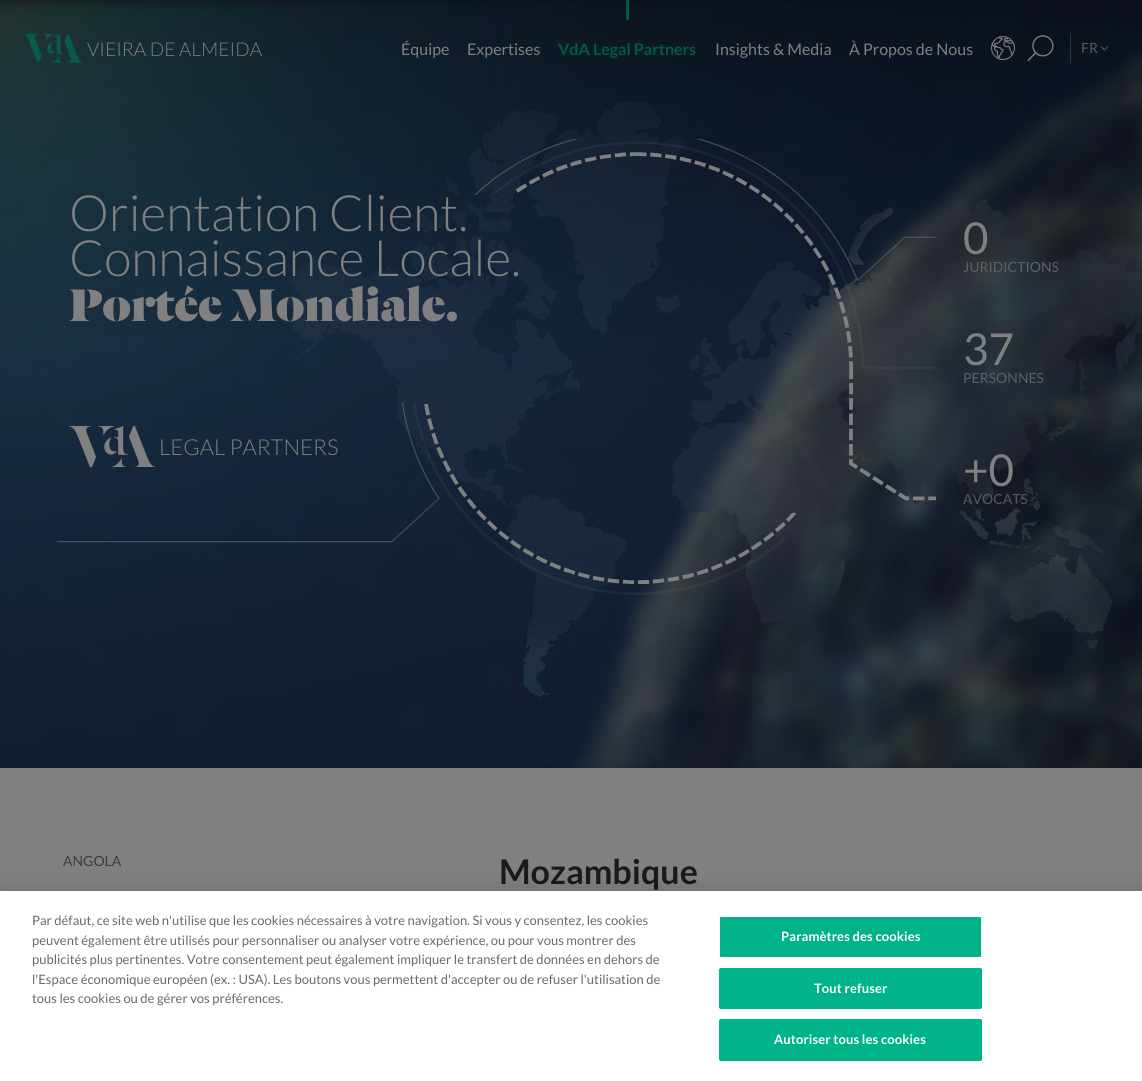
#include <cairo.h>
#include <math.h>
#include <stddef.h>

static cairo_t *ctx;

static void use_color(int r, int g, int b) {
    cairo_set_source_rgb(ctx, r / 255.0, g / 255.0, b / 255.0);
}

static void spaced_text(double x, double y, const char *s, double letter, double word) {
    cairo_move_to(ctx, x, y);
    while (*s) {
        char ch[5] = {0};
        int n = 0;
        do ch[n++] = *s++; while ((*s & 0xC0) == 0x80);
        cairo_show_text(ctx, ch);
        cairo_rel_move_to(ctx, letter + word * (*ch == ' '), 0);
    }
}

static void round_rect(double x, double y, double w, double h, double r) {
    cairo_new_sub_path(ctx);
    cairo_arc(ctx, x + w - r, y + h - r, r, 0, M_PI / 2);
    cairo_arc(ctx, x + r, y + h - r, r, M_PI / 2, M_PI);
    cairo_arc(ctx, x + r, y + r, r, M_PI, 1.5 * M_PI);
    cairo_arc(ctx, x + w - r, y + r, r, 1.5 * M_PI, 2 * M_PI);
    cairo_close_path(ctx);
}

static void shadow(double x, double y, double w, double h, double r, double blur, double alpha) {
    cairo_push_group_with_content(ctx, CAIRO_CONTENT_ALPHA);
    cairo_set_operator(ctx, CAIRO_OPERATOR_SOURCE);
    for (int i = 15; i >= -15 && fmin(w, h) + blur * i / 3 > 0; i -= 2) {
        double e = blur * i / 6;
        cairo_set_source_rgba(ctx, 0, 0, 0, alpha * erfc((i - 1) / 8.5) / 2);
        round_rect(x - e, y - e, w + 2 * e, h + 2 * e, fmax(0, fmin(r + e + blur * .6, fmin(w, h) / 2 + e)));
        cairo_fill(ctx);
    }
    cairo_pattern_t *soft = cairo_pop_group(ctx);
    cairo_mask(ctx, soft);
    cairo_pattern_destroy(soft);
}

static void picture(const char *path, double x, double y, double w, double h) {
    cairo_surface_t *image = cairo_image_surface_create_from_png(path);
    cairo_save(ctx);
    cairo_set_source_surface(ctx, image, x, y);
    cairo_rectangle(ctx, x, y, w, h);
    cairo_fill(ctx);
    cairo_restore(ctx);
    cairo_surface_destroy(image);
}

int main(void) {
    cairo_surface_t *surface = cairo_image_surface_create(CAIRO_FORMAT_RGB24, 1142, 1081);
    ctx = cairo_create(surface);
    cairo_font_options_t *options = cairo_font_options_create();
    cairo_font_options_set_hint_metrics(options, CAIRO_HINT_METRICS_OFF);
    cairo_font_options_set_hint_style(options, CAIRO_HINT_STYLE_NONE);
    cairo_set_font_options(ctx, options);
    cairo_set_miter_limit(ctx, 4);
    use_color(128, 128, 128);
    cairo_paint(ctx);
    picture("img5.png", 0, 0, 1142, 768);
    picture("img1.png", 23, 34, 60, 29);
    cairo_select_font_face(ctx, "Lato Light", CAIRO_FONT_SLANT_NORMAL, CAIRO_FONT_WEIGHT_NORMAL);
    cairo_set_font_size(ctx, 19);
    use_color(128, 128, 128);
    cairo_move_to(ctx, 87, 56);
    cairo_show_text(ctx, "VIEIRA DE ALMEIDA");
    cairo_select_font_face(ctx, "Lato", CAIRO_FONT_SLANT_NORMAL, CAIRO_FONT_WEIGHT_NORMAL);
    cairo_set_font_size(ctx, 16);
    cairo_move_to(ctx, 401, 55);
    cairo_show_text(ctx, "Équipe");
    cairo_move_to(ctx, 467, 55);
    cairo_show_text(ctx, "Expertises");
    use_color(0, 90, 68);
    cairo_rectangle(ctx, 626, 0, 3, 20);
    cairo_fill(ctx);
    cairo_select_font_face(ctx, "Lato", CAIRO_FONT_SLANT_NORMAL, CAIRO_FONT_WEIGHT_BOLD);
    cairo_move_to(ctx, 558, 55);
    cairo_show_text(ctx, "VdA Legal Partners");
    cairo_select_font_face(ctx, "Lato", CAIRO_FONT_SLANT_NORMAL, CAIRO_FONT_WEIGHT_NORMAL);
    use_color(128, 128, 128);
    cairo_move_to(ctx, 715, 55);
    cairo_show_text(ctx, "Insights & Media");
    cairo_move_to(ctx, 849, 55);
    cairo_show_text(ctx, "À Propos de Nous");
    picture("img2.png", 991, 36, 24, 24);
    picture("img3.png", 1027, 35, 27, 26);
    cairo_set_source_rgba(ctx, 0.502, 0.502, 0.502, 0.3);
    cairo_rectangle(ctx, 1070, 33, 1, 30);
    cairo_fill(ctx);
    cairo_set_font_size(ctx, 14);
    use_color(86, 88, 92);
    cairo_move_to(ctx, 1081, 53);
    cairo_show_text(ctx, "FR");
    picture("img4.png", 1100, 46, 9, 5);
    cairo_select_font_face(ctx, "Lato Light", CAIRO_FONT_SLANT_NORMAL, CAIRO_FONT_WEIGHT_NORMAL);
    cairo_set_font_size(ctx, 50);
    use_color(128, 128, 128);
    cairo_move_to(ctx, 69, 231);
    cairo_show_text(ctx, "Orientation Client.");
    cairo_move_to(ctx, 69, 276);
    cairo_show_text(ctx, "Connaissance Locale.");
    cairo_select_font_face(ctx, "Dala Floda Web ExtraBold", CAIRO_FONT_SLANT_NORMAL, CAIRO_FONT_WEIGHT_NORMAL);
    cairo_move_to(ctx, 69, 321);
    cairo_show_text(ctx, "Portée Mondiale.");
    picture("img6.png", 69, 426, 87, 41);
    cairo_select_font_face(ctx, "Lato Light", CAIRO_FONT_SLANT_NORMAL, CAIRO_FONT_WEIGHT_NORMAL);
    cairo_set_font_size(ctx, 22);
    cairo_move_to(ctx, 159, 455);
    cairo_show_text(ctx, "LEGAL PARTNERS");
    picture("img7.png", 57, 139, 879, 456);
    cairo_select_font_face(ctx, "Lato", CAIRO_FONT_SLANT_NORMAL, CAIRO_FONT_WEIGHT_NORMAL);
    cairo_set_font_size(ctx, 44);
    cairo_move_to(ctx, 963, 254);
    cairo_show_text(ctx, "0");
    cairo_set_font_size(ctx, 14);
    use_color(93, 96, 99);
    cairo_move_to(ctx, 963, 272);
    cairo_show_text(ctx, "JURIDICTIONS");
    cairo_set_font_size(ctx, 44);
    use_color(128, 128, 128);
    cairo_move_to(ctx, 963, 365);
    cairo_show_text(ctx, "37");
    cairo_set_font_size(ctx, 14);
    use_color(93, 96, 99);
    cairo_move_to(ctx, 963, 383);
    cairo_show_text(ctx, "PERSONNES");
    cairo_set_font_size(ctx, 44);
    use_color(128, 128, 128);
    cairo_move_to(ctx, 963, 486);
    cairo_show_text(ctx, "+0");
    cairo_set_font_size(ctx, 14);
    use_color(86, 88, 92);
    cairo_move_to(ctx, 963, 504);
    cairo_show_text(ctx, "AVOCATS");
    use_color(60, 60, 60);
    cairo_move_to(ctx, 63, 866);
    cairo_show_text(ctx, "ANGOLA");
    cairo_select_font_face(ctx, "Lato", CAIRO_FONT_SLANT_NORMAL, CAIRO_FONT_WEIGHT_BOLD);
    cairo_set_font_size(ctx, 34);
    use_color(26, 26, 26);
    cairo_move_to(ctx, 499, 884);
    cairo_show_text(ctx, "Mozambique");
    use_color(0, 0, 0);
    shadow(0, 891, 1142, 190, 0, 9, 0.2);
    use_color(255, 255, 255);
    cairo_rectangle(ctx, 0, 891, 1142, 190);
    cairo_fill(ctx);
    cairo_select_font_face(ctx, "Lato", CAIRO_FONT_SLANT_NORMAL, CAIRO_FONT_WEIGHT_NORMAL);
    cairo_set_font_size(ctx, 13);
    use_color(105, 105, 105);
    cairo_move_to(ctx, 32, 925);
    cairo_show_text(ctx, "Par défaut, ce site web n'utilise que les cookies nécessaires à votre navigation. Si vous y consentez, les cookies");
    cairo_move_to(ctx, 32, 945);
    cairo_show_text(ctx, "peuvent également être utilisés pour personnaliser ou analyser votre expérience, ou pour vous montrer des");
    cairo_move_to(ctx, 32, 964);
    cairo_show_text(ctx, "publicités plus pertinentes. Votre consentement peut également impliquer le transfert de données en dehors de");
    cairo_move_to(ctx, 32, 984);
    cairo_show_text(ctx, "l'Espace économique européen (ex. : USA). Les boutons vous permettent d'accepter ou de refuser l'utilisation de");
    cairo_move_to(ctx, 32, 1003);
    cairo_show_text(ctx, "tous les cookies ou de gérer vos préférences.");
    use_color(0, 179, 136);
    round_rect(719.5, 916.5, 262, 41, 1.5);
    cairo_fill_preserve(ctx);
    use_color(255, 255, 255);
    cairo_set_line_width(ctx, 1);
    cairo_stroke(ctx);
    cairo_select_font_face(ctx, "Lato", CAIRO_FONT_SLANT_NORMAL, CAIRO_FONT_WEIGHT_BOLD);
    spaced_text(781, 941, "Paramètres des cookies", 0.1, 0);
    use_color(0, 179, 136);
    round_rect(719.5, 968.5, 262, 40, 1.5);
    cairo_fill_preserve(ctx);
    cairo_stroke(ctx);
    use_color(255, 255, 255);
    spaced_text(814, 993, "Tout refuser", 0.1, 0);
    use_color(0, 179, 136);
    round_rect(719.5, 1019.5, 262, 41, 1.5);
    cairo_fill_preserve(ctx);
    cairo_stroke(ctx);
    use_color(255, 255, 255);
    spaced_text(774, 1044, "Autoriser tous les cookies", 0.1, 0);
    cairo_surface_write_to_png(surface, "result.png");
    cairo_font_options_destroy(options);
    cairo_destroy(ctx);
    cairo_surface_destroy(surface);
    return 0;
}
